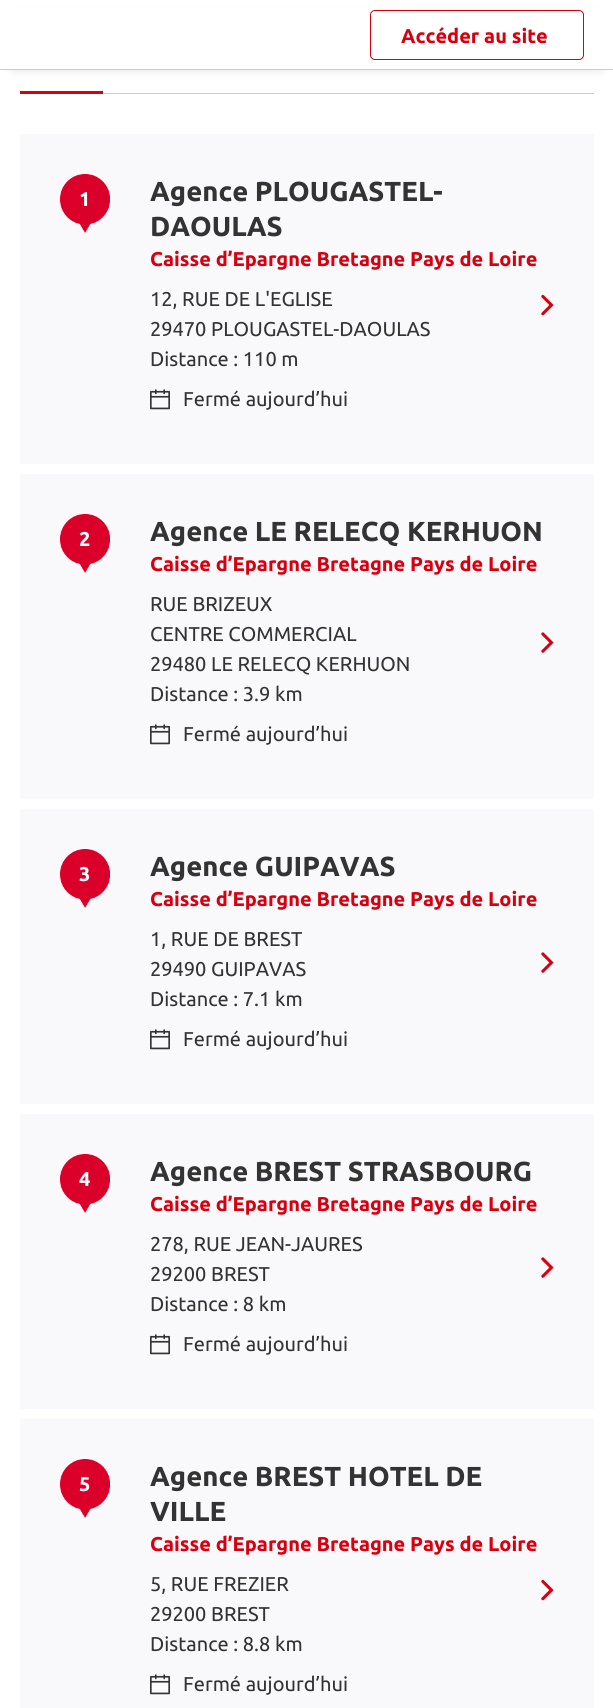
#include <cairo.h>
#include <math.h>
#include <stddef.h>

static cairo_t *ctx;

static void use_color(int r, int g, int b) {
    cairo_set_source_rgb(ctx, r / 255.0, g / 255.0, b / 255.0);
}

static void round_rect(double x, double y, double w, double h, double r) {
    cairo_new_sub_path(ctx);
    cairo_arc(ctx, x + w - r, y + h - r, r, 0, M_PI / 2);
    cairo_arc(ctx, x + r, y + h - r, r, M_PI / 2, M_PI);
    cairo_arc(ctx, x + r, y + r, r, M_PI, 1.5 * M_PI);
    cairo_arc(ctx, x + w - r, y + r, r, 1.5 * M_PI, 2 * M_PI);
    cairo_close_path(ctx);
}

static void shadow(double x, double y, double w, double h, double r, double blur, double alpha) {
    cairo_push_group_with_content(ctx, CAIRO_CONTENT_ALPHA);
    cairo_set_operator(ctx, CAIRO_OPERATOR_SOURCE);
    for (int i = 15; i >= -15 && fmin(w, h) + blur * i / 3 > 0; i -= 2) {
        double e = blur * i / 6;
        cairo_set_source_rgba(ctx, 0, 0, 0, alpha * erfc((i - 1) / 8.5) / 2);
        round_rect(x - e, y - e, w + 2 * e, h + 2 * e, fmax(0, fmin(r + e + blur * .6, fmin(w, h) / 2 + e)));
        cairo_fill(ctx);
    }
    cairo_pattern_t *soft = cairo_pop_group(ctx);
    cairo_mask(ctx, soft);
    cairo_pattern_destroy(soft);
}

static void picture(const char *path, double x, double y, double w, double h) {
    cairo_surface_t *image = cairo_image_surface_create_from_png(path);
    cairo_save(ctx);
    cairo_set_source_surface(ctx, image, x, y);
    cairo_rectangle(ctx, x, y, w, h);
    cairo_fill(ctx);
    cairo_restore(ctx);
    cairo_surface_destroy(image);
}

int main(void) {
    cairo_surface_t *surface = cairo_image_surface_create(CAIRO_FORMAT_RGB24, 613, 1708);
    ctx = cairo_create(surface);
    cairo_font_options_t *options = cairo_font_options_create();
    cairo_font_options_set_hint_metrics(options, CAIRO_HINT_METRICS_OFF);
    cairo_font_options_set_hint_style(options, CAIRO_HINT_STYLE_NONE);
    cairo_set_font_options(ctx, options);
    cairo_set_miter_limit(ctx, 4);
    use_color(255, 255, 255);
    cairo_paint(ctx);
    use_color(0, 0, 0);
    shadow(14, 21, 586, 43, 0, 7, 0.3);
    use_color(255, 255, 255);
    cairo_rectangle(ctx, 1, 8, 612, 61);
    cairo_fill(ctx);
    use_color(204, 204, 204);
    cairo_rectangle(ctx, 0, 69, 613, 1);
    cairo_fill(ctx);
    round_rect(370.5, 10.5, 213, 49, 4.5);
    use_color(215, 0, 15);
    cairo_set_line_width(ctx, 1);
    cairo_stroke(ctx);
    cairo_select_font_face(ctx, "Ubuntu", CAIRO_FONT_SLANT_NORMAL, CAIRO_FONT_WEIGHT_BOLD);
    cairo_set_font_size(ctx, 20);
    cairo_move_to(ctx, 401, 43);
    cairo_show_text(ctx, "Accéder au site");
    use_color(204, 204, 204);
    cairo_rectangle(ctx, 103, 93, 491, 1);
    cairo_fill(ctx);
    use_color(215, 0, 15);
    cairo_rectangle(ctx, 20, 91, 83, 3);
    cairo_fill(ctx);
    use_color(249, 249, 251);
    cairo_rectangle(ctx, 20, 134, 574, 330);
    cairo_fill(ctx);
    picture("img1.png", 60, 174, 50, 59);
    use_color(255, 255, 255);
    cairo_move_to(ctx, 79, 206);
    cairo_show_text(ctx, "1");
    cairo_set_font_size(ctx, 27.5);
    use_color(51, 51, 51);
    cairo_move_to(ctx, 150, 201);
    cairo_show_text(ctx, "Agence PLOUGASTEL-");
    cairo_move_to(ctx, 150, 236);
    cairo_show_text(ctx, "DAOULAS");
    cairo_set_font_size(ctx, 20);
    use_color(215, 0, 15);
    cairo_move_to(ctx, 150, 266);
    cairo_show_text(ctx, "Caisse d’Epargne Bretagne Pays de Loire");
    cairo_select_font_face(ctx, "Ubuntu", CAIRO_FONT_SLANT_NORMAL, CAIRO_FONT_WEIGHT_NORMAL);
    use_color(51, 51, 51);
    cairo_move_to(ctx, 150, 306);
    cairo_show_text(ctx, "12, RUE DE L'EGLISE");
    cairo_move_to(ctx, 150, 336);
    cairo_show_text(ctx, "29470 PLOUGASTEL-DAOULAS");
    cairo_move_to(ctx, 150, 366);
    cairo_show_text(ctx, "Distance : 110 m");
    picture("img2.png", 541, 294, 13, 22);
    picture("img3.png", 150, 389, 20, 21);
    cairo_move_to(ctx, 183, 406);
    cairo_show_text(ctx, "Fermé aujourd’hui");
    use_color(249, 249, 251);
    cairo_rectangle(ctx, 20, 474, 574, 325);
    cairo_fill(ctx);
    picture("img1.png", 60, 514, 50, 59);
    cairo_select_font_face(ctx, "Ubuntu", CAIRO_FONT_SLANT_NORMAL, CAIRO_FONT_WEIGHT_BOLD);
    use_color(255, 255, 255);
    cairo_move_to(ctx, 79, 546);
    cairo_show_text(ctx, "2");
    cairo_set_font_size(ctx, 27.5);
    use_color(51, 51, 51);
    cairo_move_to(ctx, 150, 541);
    cairo_show_text(ctx, "Agence LE RELECQ KERHUON");
    cairo_set_font_size(ctx, 20);
    use_color(215, 0, 15);
    cairo_move_to(ctx, 150, 571);
    cairo_show_text(ctx, "Caisse d’Epargne Bretagne Pays de Loire");
    cairo_select_font_face(ctx, "Ubuntu", CAIRO_FONT_SLANT_NORMAL, CAIRO_FONT_WEIGHT_NORMAL);
    use_color(51, 51, 51);
    cairo_move_to(ctx, 150, 611);
    cairo_show_text(ctx, "RUE BRIZEUX");
    cairo_move_to(ctx, 150, 641);
    cairo_show_text(ctx, "CENTRE COMMERCIAL");
    cairo_move_to(ctx, 150, 671);
    cairo_show_text(ctx, "29480 LE RELECQ KERHUON");
    cairo_move_to(ctx, 150, 701);
    cairo_show_text(ctx, "Distance : 3.9 km");
    picture("img4.png", 541, 632, 13, 21);
    picture("img3.png", 150, 724, 20, 21);
    cairo_move_to(ctx, 183, 741);
    cairo_show_text(ctx, "Fermé aujourd’hui");
    use_color(249, 249, 251);
    cairo_rectangle(ctx, 20, 809, 574, 295);
    cairo_fill(ctx);
    picture("img1.png", 60, 849, 50, 59);
    cairo_select_font_face(ctx, "Ubuntu", CAIRO_FONT_SLANT_NORMAL, CAIRO_FONT_WEIGHT_BOLD);
    use_color(255, 255, 255);
    cairo_move_to(ctx, 79, 881);
    cairo_show_text(ctx, "3");
    cairo_set_font_size(ctx, 27.5);
    use_color(51, 51, 51);
    cairo_move_to(ctx, 150, 876);
    cairo_show_text(ctx, "Agence GUIPAVAS");
    cairo_set_font_size(ctx, 20);
    use_color(215, 0, 15);
    cairo_move_to(ctx, 150, 906);
    cairo_show_text(ctx, "Caisse d’Epargne Bretagne Pays de Loire");
    cairo_select_font_face(ctx, "Ubuntu", CAIRO_FONT_SLANT_NORMAL, CAIRO_FONT_WEIGHT_NORMAL);
    use_color(51, 51, 51);
    cairo_move_to(ctx, 150, 946);
    cairo_show_text(ctx, "1, RUE DE BREST");
    cairo_move_to(ctx, 150, 976);
    cairo_show_text(ctx, "29490 GUIPAVAS");
    cairo_move_to(ctx, 150, 1006);
    cairo_show_text(ctx, "Distance : 7.1 km");
    picture("img4.png", 541, 952, 13, 21);
    picture("img3.png", 150, 1029, 20, 21);
    cairo_move_to(ctx, 183, 1046);
    cairo_show_text(ctx, "Fermé aujourd’hui");
    use_color(249, 249, 251);
    cairo_rectangle(ctx, 20, 1114, 574, 295);
    cairo_fill(ctx);
    picture("img1.png", 60, 1154, 50, 59);
    cairo_select_font_face(ctx, "Ubuntu", CAIRO_FONT_SLANT_NORMAL, CAIRO_FONT_WEIGHT_BOLD);
    use_color(255, 255, 255);
    cairo_move_to(ctx, 79, 1186);
    cairo_show_text(ctx, "4");
    cairo_set_font_size(ctx, 27.5);
    use_color(51, 51, 51);
    cairo_move_to(ctx, 150, 1181);
    cairo_show_text(ctx, "Agence BREST STRASBOURG");
    cairo_set_font_size(ctx, 20);
    use_color(215, 0, 15);
    cairo_move_to(ctx, 150, 1211);
    cairo_show_text(ctx, "Caisse d’Epargne Bretagne Pays de Loire");
    cairo_select_font_face(ctx, "Ubuntu", CAIRO_FONT_SLANT_NORMAL, CAIRO_FONT_WEIGHT_NORMAL);
    use_color(51, 51, 51);
    cairo_move_to(ctx, 150, 1251);
    cairo_show_text(ctx, "278, RUE JEAN-JAURES");
    cairo_move_to(ctx, 150, 1281);
    cairo_show_text(ctx, "29200 BREST");
    cairo_move_to(ctx, 150, 1311);
    cairo_show_text(ctx, "Distance : 8 km");
    picture("img4.png", 541, 1257, 13, 21);
    picture("img3.png", 150, 1334, 20, 21);
    cairo_move_to(ctx, 183, 1351);
    cairo_show_text(ctx, "Fermé aujourd’hui");
    use_color(249, 249, 251);
    cairo_rectangle(ctx, 20, 1419, 574, 289);
    cairo_fill(ctx);
    picture("img1.png", 60, 1459, 50, 59);
    cairo_select_font_face(ctx, "Ubuntu", CAIRO_FONT_SLANT_NORMAL, CAIRO_FONT_WEIGHT_BOLD);
    use_color(255, 255, 255);
    cairo_move_to(ctx, 79, 1491);
    cairo_show_text(ctx, "5");
    cairo_set_font_size(ctx, 27.5);
    use_color(51, 51, 51);
    cairo_move_to(ctx, 150, 1486);
    cairo_show_text(ctx, "Agence BREST HOTEL DE");
    cairo_move_to(ctx, 150, 1521);
    cairo_show_text(ctx, "VILLE");
    cairo_set_font_size(ctx, 20);
    use_color(215, 0, 15);
    cairo_move_to(ctx, 150, 1551);
    cairo_show_text(ctx, "Caisse d’Epargne Bretagne Pays de Loire");
    cairo_select_font_face(ctx, "Ubuntu", CAIRO_FONT_SLANT_NORMAL, CAIRO_FONT_WEIGHT_NORMAL);
    use_color(51, 51, 51);
    cairo_move_to(ctx, 150, 1591);
    cairo_show_text(ctx, "5, RUE FREZIER");
    cairo_move_to(ctx, 150, 1621);
    cairo_show_text(ctx, "29200 BREST");
    cairo_move_to(ctx, 150, 1651);
    cairo_show_text(ctx, "Distance : 8.8 km");
    picture("img2.png", 541, 1579, 13, 22);
    picture("img3.png", 150, 1674, 20, 21);
    cairo_move_to(ctx, 183, 1691);
    cairo_show_text(ctx, "Fermé aujourd’hui");
    cairo_surface_write_to_png(surface, "result.png");
    cairo_font_options_destroy(options);
    cairo_destroy(ctx);
    cairo_surface_destroy(surface);
    return 0;
}
